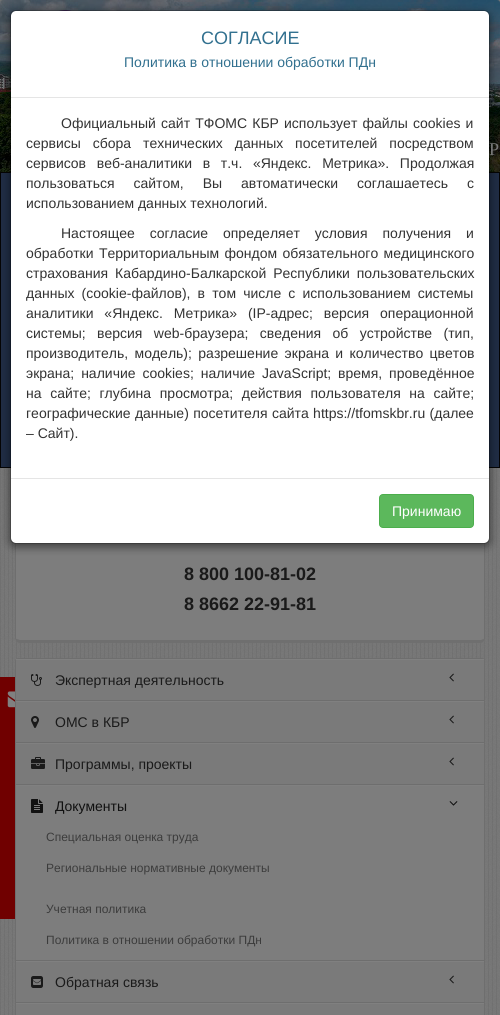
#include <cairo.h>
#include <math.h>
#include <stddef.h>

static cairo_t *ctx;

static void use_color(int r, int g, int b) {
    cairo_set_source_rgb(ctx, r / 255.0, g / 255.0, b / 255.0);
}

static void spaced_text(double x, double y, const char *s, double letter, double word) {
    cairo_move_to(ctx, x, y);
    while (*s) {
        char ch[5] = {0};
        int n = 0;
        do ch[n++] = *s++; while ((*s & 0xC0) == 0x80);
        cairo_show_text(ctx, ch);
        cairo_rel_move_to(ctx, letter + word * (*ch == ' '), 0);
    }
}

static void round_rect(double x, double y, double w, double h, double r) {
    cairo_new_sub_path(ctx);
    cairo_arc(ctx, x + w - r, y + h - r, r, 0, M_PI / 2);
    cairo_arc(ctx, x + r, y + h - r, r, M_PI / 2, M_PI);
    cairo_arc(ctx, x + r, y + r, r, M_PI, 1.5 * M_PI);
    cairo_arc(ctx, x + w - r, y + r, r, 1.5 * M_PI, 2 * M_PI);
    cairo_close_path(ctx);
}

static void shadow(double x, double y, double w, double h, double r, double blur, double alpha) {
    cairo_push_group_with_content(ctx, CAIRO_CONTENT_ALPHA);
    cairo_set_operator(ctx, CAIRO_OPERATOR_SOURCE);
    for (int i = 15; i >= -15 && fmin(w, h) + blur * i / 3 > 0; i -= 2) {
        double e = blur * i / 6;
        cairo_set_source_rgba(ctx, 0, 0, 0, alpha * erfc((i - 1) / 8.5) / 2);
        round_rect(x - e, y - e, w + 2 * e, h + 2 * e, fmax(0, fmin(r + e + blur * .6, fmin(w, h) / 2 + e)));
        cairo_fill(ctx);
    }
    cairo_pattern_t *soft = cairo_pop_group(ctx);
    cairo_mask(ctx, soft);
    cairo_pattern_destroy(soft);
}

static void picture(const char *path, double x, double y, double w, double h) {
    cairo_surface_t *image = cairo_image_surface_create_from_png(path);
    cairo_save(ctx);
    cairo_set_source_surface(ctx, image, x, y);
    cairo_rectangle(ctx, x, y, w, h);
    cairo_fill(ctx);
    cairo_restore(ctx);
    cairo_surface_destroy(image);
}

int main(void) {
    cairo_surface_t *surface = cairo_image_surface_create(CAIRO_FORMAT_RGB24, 500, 1015);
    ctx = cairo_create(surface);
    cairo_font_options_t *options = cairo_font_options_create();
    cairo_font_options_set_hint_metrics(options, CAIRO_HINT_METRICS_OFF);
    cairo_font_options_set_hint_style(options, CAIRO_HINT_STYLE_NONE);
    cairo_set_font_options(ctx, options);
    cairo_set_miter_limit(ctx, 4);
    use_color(255, 255, 255);
    cairo_paint(ctx);
    picture("img1.png", 0, 0, 500, 1015);
    use_color(125, 125, 125);
    cairo_new_path(ctx);
    cairo_move_to(ctx, 20, 250);
    cairo_line_to(ctx, 480, 250);
    cairo_curve_to(ctx, 482, 250, 484, 252, 484, 254);
    cairo_line_to(ctx, 484, 638);
    cairo_curve_to(ctx, 484, 639, 482, 640, 480, 640);
    cairo_line_to(ctx, 20, 640);
    cairo_curve_to(ctx, 18, 640, 16, 639, 16, 638);
    cairo_line_to(ctx, 16, 254);
    cairo_curve_to(ctx, 16, 252, 18, 250, 20, 250);
    cairo_close_path(ctx);
    cairo_fill(ctx);
    use_color(110, 110, 110);
    cairo_new_path(ctx);
    cairo_move_to(ctx, 485, 638);
    cairo_line_to(ctx, 485, 254);
    cairo_curve_to(ctx, 485, 252, 484, 251, 484, 250);
    cairo_line_to(ctx, 483, 251);
    cairo_line_to(ctx, 484, 254);
    cairo_line_to(ctx, 484, 638);
    cairo_line_to(ctx, 484, 639);
    cairo_line_to(ctx, 484, 641);
    cairo_close_path(ctx);
    cairo_fill(ctx);
    use_color(111, 111, 111);
    cairo_new_path(ctx);
    cairo_move_to(ctx, 20, 643);
    cairo_line_to(ctx, 480, 643);
    cairo_curve_to(ctx, 482, 643, 483, 642, 484, 641);
    cairo_line_to(ctx, 484, 639);
    cairo_line_to(ctx, 481, 640);
    cairo_line_to(ctx, 327, 640);
    cairo_line_to(ctx, 20, 640);
    cairo_line_to(ctx, 16, 639);
    cairo_line_to(ctx, 16, 641);
    cairo_curve_to(ctx, 17, 642, 18, 643, 20, 643);
    cairo_close_path(ctx);
    cairo_fill(ctx);
    use_color(110, 110, 110);
    cairo_new_path(ctx);
    cairo_move_to(ctx, 15, 254);
    cairo_line_to(ctx, 15, 638);
    cairo_line_to(ctx, 16, 641);
    cairo_line_to(ctx, 16, 639);
    cairo_line_to(ctx, 16, 638);
    cairo_line_to(ctx, 16, 254);
    cairo_line_to(ctx, 17, 251);
    cairo_line_to(ctx, 16, 250);
    cairo_curve_to(ctx, 16, 251, 15, 252, 15, 254);
    cairo_close_path(ctx);
    cairo_fill(ctx);
    picture("img9.png", 0, 0, 500, 172);
    picture("img10.png", 59, 10, 13, 1);
    use_color(32, 45, 69);
    cairo_rectangle(ctx, 0.5, 172.5, 499, 295);
    cairo_fill_preserve(ctx);
    use_color(4, 4, 4);
    cairo_set_line_width(ctx, 1);
    cairo_stroke(ctx);
    use_color(0, 0, 0);
    shadow(10, 13, 480, 534, 6, 4.5, 0.5);
    use_color(255, 255, 255);
    round_rect(11, 11, 478, 532, 5);
    cairo_fill(ctx);
    cairo_select_font_face(ctx, "Liberation Serif", CAIRO_FONT_SLANT_NORMAL, CAIRO_FONT_WEIGHT_NORMAL);
    cairo_set_font_size(ctx, 18);
    use_color(121, 121, 121);
    cairo_move_to(ctx, 489, 155);
    cairo_show_text(ctx, "Р");
    round_rect(10.5, 10.5, 479, 533, 5.5);
    cairo_set_source_rgba(ctx, 0, 0, 0, 0.2);
    cairo_stroke(ctx);
    use_color(229, 229, 229);
    cairo_rectangle(ctx, 11, 97, 478, 1);
    cairo_fill(ctx);
    cairo_select_font_face(ctx, "Liberation Sans", CAIRO_FONT_SLANT_NORMAL, CAIRO_FONT_WEIGHT_NORMAL);
    use_color(49, 112, 143);
    cairo_move_to(ctx, 201, 44);
    cairo_show_text(ctx, "СОГЛАСИЕ");
    cairo_set_font_size(ctx, 14);
    cairo_move_to(ctx, 124, 67);
    cairo_show_text(ctx, "Политика в отношении обработки ПДн");
    use_color(51, 51, 51);
    spaced_text(61, 128, "Официальный сайт ТФОМС КБР использует файлы cookies и", 0, 1.25);
    spaced_text(26, 148, "сервисы сбора технических данных посетителей посредством", 0, 8);
    spaced_text(26, 168, "сервисов веб-аналитики в т.ч. «Яндекс. Метрика». Продолжая", 0, 6.75);
    spaced_text(26, 188, "пользоваться сайтом, Вы автоматически соглашаетесь с", 0, 15);
    cairo_move_to(ctx, 26, 208);
    cairo_show_text(ctx, "использованием данных технологий.");
    spaced_text(61, 238, "Настоящее согласие определяет условия получения и", 0, 11);
    spaced_text(26, 258, "обработки Территориальным фондом обязательного медицинского", 0, 1.5);
    spaced_text(26, 278, "страхования Кабардино-Балкарской Республики пользовательских", 0, 3);
    spaced_text(26, 298, "данных (cookie-файлов), в том числе с использованием системы", 0, 3.25);
    spaced_text(26, 318, "аналитики «Яндекс. Метрика» (IP-адрес; версия операционной", 0, 7);
    spaced_text(26, 338, "системы; версия web-браузера; сведения об устройстве (тип,", 0, 7.5);
    spaced_text(26, 358, "производитель, модель); разрешение экрана и количество цветов", 0, 2.5);
    spaced_text(26, 378, "экрана; наличие cookies; наличие JavaScript; время, проведённое", 0, 3);
    spaced_text(26, 398, "на сайте; глубина просмотра; действия пользователя на сайте;", 0, 4.75);
    spaced_text(26, 418, "географические данные) посетителя сайта https://tfomskbr.ru (далее", 0, 0.5);
    cairo_move_to(ctx, 26, 438);
    cairo_show_text(ctx, "– Сайт).");
    use_color(229, 229, 229);
    cairo_rectangle(ctx, 11, 478, 478, 1);
    cairo_fill(ctx);
    use_color(92, 184, 92);
    round_rect(379.5, 494.5, 94, 33, 3.5);
    cairo_fill_preserve(ctx);
    use_color(76, 174, 76);
    cairo_stroke(ctx);
    use_color(255, 255, 255);
    cairo_move_to(ctx, 392, 516);
    cairo_show_text(ctx, "Принимаю");
    cairo_select_font_face(ctx, "Liberation Sans", CAIRO_FONT_SLANT_NORMAL, CAIRO_FONT_WEIGHT_BOLD);
    cairo_set_font_size(ctx, 18);
    use_color(26, 26, 26);
    cairo_move_to(ctx, 184, 580);
    cairo_show_text(ctx, "8 800 100-81-02");
    cairo_move_to(ctx, 184, 610);
    cairo_show_text(ctx, "8 8662 22-91-81");
    use_color(122, 122, 122);
    round_rect(15.5, 658.5, 469, 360, 2.5);
    cairo_fill_preserve(ctx);
    use_color(110, 110, 110);
    cairo_stroke(ctx);
    use_color(128, 128, 128);
    cairo_rectangle(ctx, 16, 659, 468, 1);
    cairo_fill(ctx);
    use_color(110, 110, 110);
    cairo_rectangle(ctx, 16, 700, 468, 1);
    cairo_fill(ctx);
    picture("img2.png", 31, 674, 11, 12);
    cairo_select_font_face(ctx, "Liberation Sans", CAIRO_FONT_SLANT_NORMAL, CAIRO_FONT_WEIGHT_NORMAL);
    cairo_set_font_size(ctx, 14);
    use_color(26, 26, 26);
    cairo_move_to(ctx, 55, 685);
    cairo_show_text(ctx, "Экспертная деятельность");
    picture("img3.png", 449, 673, 5, 9);
    use_color(128, 128, 128);
    cairo_rectangle(ctx, 16, 701, 468, 1);
    cairo_fill(ctx);
    use_color(110, 110, 110);
    cairo_rectangle(ctx, 16, 742, 468, 1);
    cairo_fill(ctx);
    picture("img4.png", 31, 716, 8, 12);
    use_color(26, 26, 26);
    cairo_move_to(ctx, 55, 727);
    cairo_show_text(ctx, "ОМС в КБР");
    picture("img3.png", 449, 715, 5, 9);
    use_color(128, 128, 128);
    cairo_rectangle(ctx, 16, 743, 468, 1);
    cairo_fill(ctx);
    use_color(110, 110, 110);
    cairo_rectangle(ctx, 16, 784, 468, 1);
    cairo_fill(ctx);
    picture("img5.png", 31, 757, 14, 12);
    use_color(26, 26, 26);
    cairo_move_to(ctx, 55, 769);
    cairo_show_text(ctx, "Программы, проекты");
    picture("img3.png", 449, 757, 5, 9);
    use_color(128, 128, 128);
    cairo_rectangle(ctx, 16, 785, 468, 1);
    cairo_fill(ctx);
    use_color(110, 110, 110);
    cairo_rectangle(ctx, 16, 960, 468, 1);
    cairo_fill(ctx);
    use_color(125, 125, 125);
    cairo_rectangle(ctx, 16, 786, 468, 174);
    cairo_fill(ctx);
    picture("img6.png", 31, 799, 12, 14);
    use_color(17, 17, 17);
    cairo_move_to(ctx, 55, 811);
    cairo_show_text(ctx, "Документы");
    picture("img7.png", 449, 801, 9, 5);
    cairo_set_font_size(ctx, 12);
    use_color(60, 60, 60);
    cairo_move_to(ctx, 46, 841);
    cairo_show_text(ctx, "Специальная оценка труда");
    cairo_move_to(ctx, 46, 872);
    cairo_show_text(ctx, "Региональные нормативные документы");
    cairo_move_to(ctx, 46, 913);
    cairo_show_text(ctx, "Учетная политика");
    cairo_move_to(ctx, 46, 944);
    cairo_show_text(ctx, "Политика в отношении обработки ПДн");
    use_color(128, 128, 128);
    cairo_rectangle(ctx, 16, 961, 468, 1);
    cairo_fill(ctx);
    use_color(110, 110, 110);
    cairo_rectangle(ctx, 16, 1002, 468, 1);
    cairo_fill(ctx);
    picture("img8.png", 31, 976, 12, 12);
    cairo_set_font_size(ctx, 14);
    use_color(26, 26, 26);
    cairo_move_to(ctx, 55, 987);
    cairo_show_text(ctx, "Обратная связь");
    picture("img3.png", 449, 975, 5, 9);
    use_color(128, 128, 128);
    cairo_rectangle(ctx, 16, 1003, 468, 1);
    cairo_fill(ctx);
    use_color(112, 0, 0);
    cairo_rectangle(ctx, 0, 677, 15, 242);
    cairo_fill(ctx);
    picture("img11.png", 7, 691, 8, 17);
    cairo_surface_write_to_png(surface, "result.png");
    cairo_font_options_destroy(options);
    cairo_destroy(ctx);
    cairo_surface_destroy(surface);
    return 0;
}
